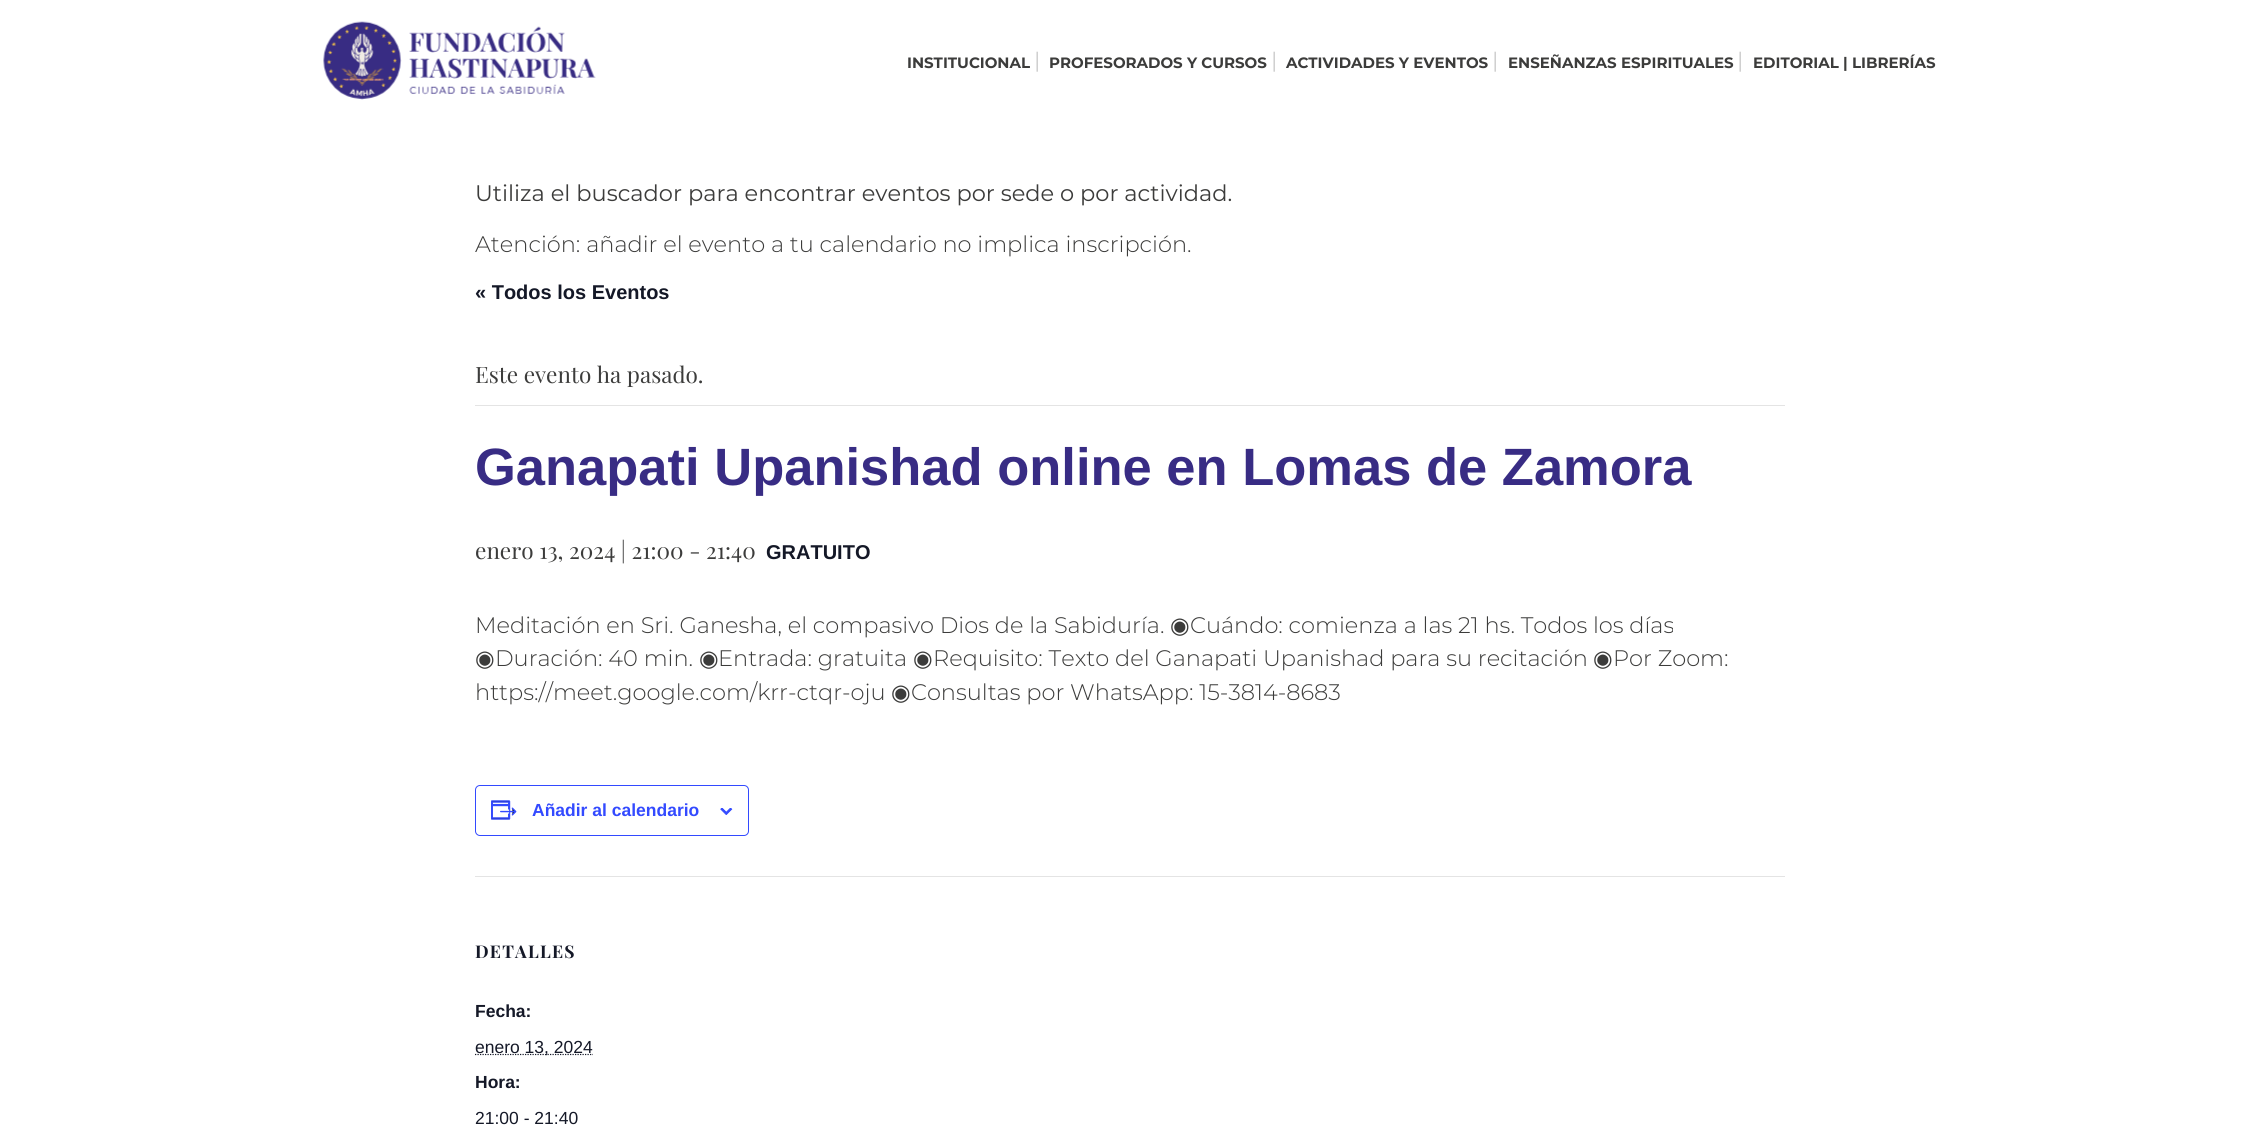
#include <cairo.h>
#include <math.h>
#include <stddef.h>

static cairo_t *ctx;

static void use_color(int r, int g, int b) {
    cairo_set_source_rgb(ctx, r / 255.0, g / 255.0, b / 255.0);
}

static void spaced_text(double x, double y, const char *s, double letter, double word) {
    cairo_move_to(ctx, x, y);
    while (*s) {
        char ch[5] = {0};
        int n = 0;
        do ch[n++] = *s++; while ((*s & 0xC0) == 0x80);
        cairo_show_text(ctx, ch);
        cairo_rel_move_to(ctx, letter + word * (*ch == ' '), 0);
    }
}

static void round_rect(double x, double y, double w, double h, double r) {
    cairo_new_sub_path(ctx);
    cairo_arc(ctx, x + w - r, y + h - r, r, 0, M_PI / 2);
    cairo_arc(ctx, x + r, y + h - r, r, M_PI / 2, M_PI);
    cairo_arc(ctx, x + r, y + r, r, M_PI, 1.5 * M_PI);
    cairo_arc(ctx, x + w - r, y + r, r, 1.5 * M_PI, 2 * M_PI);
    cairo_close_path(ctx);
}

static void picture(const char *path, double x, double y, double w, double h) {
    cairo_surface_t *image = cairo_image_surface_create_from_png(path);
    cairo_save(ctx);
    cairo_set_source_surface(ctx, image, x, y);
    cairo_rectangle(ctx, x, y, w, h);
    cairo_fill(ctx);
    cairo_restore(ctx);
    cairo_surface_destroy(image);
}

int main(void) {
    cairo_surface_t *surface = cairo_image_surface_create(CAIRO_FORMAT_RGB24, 2260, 1145);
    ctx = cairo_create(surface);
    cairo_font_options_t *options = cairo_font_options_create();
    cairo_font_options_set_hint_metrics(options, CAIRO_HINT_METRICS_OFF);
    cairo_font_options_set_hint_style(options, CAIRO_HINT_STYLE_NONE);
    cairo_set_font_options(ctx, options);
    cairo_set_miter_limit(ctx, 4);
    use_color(255, 255, 255);
    cairo_paint(ctx);
    picture("img1.png", 323, 21, 273, 79);
    cairo_select_font_face(ctx, "Montserrat", CAIRO_FONT_SLANT_NORMAL, CAIRO_FONT_WEIGHT_BOLD);
    cairo_set_font_size(ctx, 15);
    use_color(60, 60, 59);
    cairo_move_to(ctx, 907, 68);
    cairo_show_text(ctx, "INSTITUCIONAL");
    cairo_select_font_face(ctx, "Playfair Display", CAIRO_FONT_SLANT_NORMAL, CAIRO_FONT_WEIGHT_NORMAL);
    cairo_set_font_size(ctx, 19);
    use_color(158, 158, 158);
    cairo_move_to(ctx, 1035, 68);
    cairo_show_text(ctx, "|");
    cairo_select_font_face(ctx, "Montserrat", CAIRO_FONT_SLANT_NORMAL, CAIRO_FONT_WEIGHT_BOLD);
    cairo_set_font_size(ctx, 15);
    use_color(60, 60, 59);
    cairo_move_to(ctx, 1049, 68);
    cairo_show_text(ctx, "PROFESORADOS Y CURSOS");
    cairo_select_font_face(ctx, "Playfair Display", CAIRO_FONT_SLANT_NORMAL, CAIRO_FONT_WEIGHT_NORMAL);
    cairo_set_font_size(ctx, 19);
    use_color(158, 158, 158);
    cairo_move_to(ctx, 1272, 68);
    cairo_show_text(ctx, "|");
    cairo_select_font_face(ctx, "Montserrat", CAIRO_FONT_SLANT_NORMAL, CAIRO_FONT_WEIGHT_BOLD);
    cairo_set_font_size(ctx, 15);
    use_color(60, 60, 59);
    cairo_move_to(ctx, 1286, 68);
    cairo_show_text(ctx, "ACTIVIDADES Y EVENTOS");
    cairo_select_font_face(ctx, "Playfair Display", CAIRO_FONT_SLANT_NORMAL, CAIRO_FONT_WEIGHT_NORMAL);
    cairo_set_font_size(ctx, 19);
    use_color(158, 158, 158);
    cairo_move_to(ctx, 1493, 68);
    cairo_show_text(ctx, "|");
    cairo_select_font_face(ctx, "Montserrat", CAIRO_FONT_SLANT_NORMAL, CAIRO_FONT_WEIGHT_BOLD);
    cairo_set_font_size(ctx, 15);
    use_color(60, 60, 59);
    cairo_move_to(ctx, 1508, 68);
    cairo_show_text(ctx, "ENSEÑANZAS ESPIRITUALES");
    cairo_select_font_face(ctx, "Playfair Display", CAIRO_FONT_SLANT_NORMAL, CAIRO_FONT_WEIGHT_NORMAL);
    cairo_set_font_size(ctx, 19);
    use_color(158, 158, 158);
    cairo_move_to(ctx, 1738, 68);
    cairo_show_text(ctx, "|");
    cairo_select_font_face(ctx, "Montserrat", CAIRO_FONT_SLANT_NORMAL, CAIRO_FONT_WEIGHT_BOLD);
    cairo_set_font_size(ctx, 15);
    use_color(60, 60, 59);
    cairo_move_to(ctx, 1753, 68);
    cairo_show_text(ctx, "EDITORIAL | LIBRERÍAS");
    cairo_select_font_face(ctx, "Montserrat", CAIRO_FONT_SLANT_NORMAL, CAIRO_FONT_WEIGHT_NORMAL);
    cairo_set_font_size(ctx, 22.5);
    cairo_move_to(ctx, 475, 201);
    cairo_show_text(ctx, "Utiliza el buscador para encontrar eventos por sede o por actividad.");
    cairo_select_font_face(ctx, "Montserrat Light", CAIRO_FONT_SLANT_NORMAL, CAIRO_FONT_WEIGHT_NORMAL);
    cairo_move_to(ctx, 475, 252);
    cairo_show_text(ctx, "Atención: añadir el evento a tu calendario no implica inscripción.");
    cairo_select_font_face(ctx, "Liberation Sans", CAIRO_FONT_SLANT_NORMAL, CAIRO_FONT_WEIGHT_BOLD);
    cairo_set_font_size(ctx, 20);
    use_color(20, 24, 39);
    cairo_move_to(ctx, 475, 299);
    cairo_show_text(ctx, "« Todos los Eventos");
    use_color(228, 228, 228);
    cairo_rectangle(ctx, 475, 405, 1310, 1);
    cairo_fill(ctx);
    cairo_select_font_face(ctx, "Playfair Display", CAIRO_FONT_SLANT_NORMAL, CAIRO_FONT_WEIGHT_NORMAL);
    cairo_set_font_size(ctx, 22.5);
    use_color(60, 60, 59);
    cairo_move_to(ctx, 475, 383);
    cairo_show_text(ctx, "Este evento ha pasado.");
    cairo_select_font_face(ctx, "Liberation Sans", CAIRO_FONT_SLANT_NORMAL, CAIRO_FONT_WEIGHT_BOLD);
    cairo_set_font_size(ctx, 52.5);
    use_color(56, 44, 132);
    cairo_move_to(ctx, 475, 485);
    cairo_show_text(ctx, "Ganapati Upanishad online en Lomas de Zamora");
    cairo_select_font_face(ctx, "Playfair Display", CAIRO_FONT_SLANT_NORMAL, CAIRO_FONT_WEIGHT_NORMAL);
    cairo_set_font_size(ctx, 22.5);
    use_color(60, 60, 59);
    cairo_move_to(ctx, 475, 559);
    cairo_show_text(ctx, "enero 13, 2024 | 21:00 - 21:40");
    cairo_select_font_face(ctx, "Liberation Sans", CAIRO_FONT_SLANT_NORMAL, CAIRO_FONT_WEIGHT_BOLD);
    cairo_set_font_size(ctx, 20);
    use_color(20, 24, 39);
    cairo_move_to(ctx, 766, 559);
    cairo_show_text(ctx, "GRATUITO");
    cairo_select_font_face(ctx, "Montserrat Light", CAIRO_FONT_SLANT_NORMAL, CAIRO_FONT_WEIGHT_NORMAL);
    cairo_set_font_size(ctx, 22.5);
    use_color(60, 60, 59);
    cairo_move_to(ctx, 475, 633);
    cairo_show_text(ctx, "Meditación en Sri. Ganesha, el compasivo Dios de la Sabiduría.");
    cairo_select_font_face(ctx, "DejaVu Sans", CAIRO_FONT_SLANT_NORMAL, CAIRO_FONT_WEIGHT_NORMAL);
    cairo_move_to(ctx, 1170, 633);
    cairo_show_text(ctx, "◉");
    cairo_select_font_face(ctx, "Montserrat Light", CAIRO_FONT_SLANT_NORMAL, CAIRO_FONT_WEIGHT_NORMAL);
    cairo_move_to(ctx, 1190, 633);
    cairo_show_text(ctx, "Cuándo: comienza a las 21 hs. Todos los días");
    cairo_select_font_face(ctx, "DejaVu Sans", CAIRO_FONT_SLANT_NORMAL, CAIRO_FONT_WEIGHT_NORMAL);
    cairo_move_to(ctx, 475, 666);
    cairo_show_text(ctx, "◉");
    cairo_select_font_face(ctx, "Montserrat Light", CAIRO_FONT_SLANT_NORMAL, CAIRO_FONT_WEIGHT_NORMAL);
    cairo_move_to(ctx, 495, 666);
    cairo_show_text(ctx, "Duración: 40 min.");
    cairo_select_font_face(ctx, "DejaVu Sans", CAIRO_FONT_SLANT_NORMAL, CAIRO_FONT_WEIGHT_NORMAL);
    cairo_move_to(ctx, 699, 666);
    cairo_show_text(ctx, "◉");
    cairo_select_font_face(ctx, "Montserrat Light", CAIRO_FONT_SLANT_NORMAL, CAIRO_FONT_WEIGHT_NORMAL);
    cairo_move_to(ctx, 718, 666);
    cairo_show_text(ctx, "Entrada: gratuita");
    cairo_select_font_face(ctx, "DejaVu Sans", CAIRO_FONT_SLANT_NORMAL, CAIRO_FONT_WEIGHT_NORMAL);
    cairo_move_to(ctx, 913, 666);
    cairo_show_text(ctx, "◉");
    cairo_select_font_face(ctx, "Montserrat Light", CAIRO_FONT_SLANT_NORMAL, CAIRO_FONT_WEIGHT_NORMAL);
    cairo_move_to(ctx, 933, 666);
    cairo_show_text(ctx, "Requisito: Texto del Ganapati Upanishad para su recitación");
    cairo_select_font_face(ctx, "DejaVu Sans", CAIRO_FONT_SLANT_NORMAL, CAIRO_FONT_WEIGHT_NORMAL);
    cairo_move_to(ctx, 1593, 666);
    cairo_show_text(ctx, "◉");
    cairo_select_font_face(ctx, "Montserrat Light", CAIRO_FONT_SLANT_NORMAL, CAIRO_FONT_WEIGHT_NORMAL);
    cairo_move_to(ctx, 1613, 666);
    cairo_show_text(ctx, "Por Zoom:");
    cairo_move_to(ctx, 475, 700);
    cairo_show_text(ctx, "https://meet.google.com/krr-ctqr-oju");
    cairo_select_font_face(ctx, "DejaVu Sans", CAIRO_FONT_SLANT_NORMAL, CAIRO_FONT_WEIGHT_NORMAL);
    cairo_move_to(ctx, 891, 700);
    cairo_show_text(ctx, "◉");
    cairo_select_font_face(ctx, "Montserrat Light", CAIRO_FONT_SLANT_NORMAL, CAIRO_FONT_WEIGHT_NORMAL);
    cairo_move_to(ctx, 911, 700);
    cairo_show_text(ctx, "Consultas por WhatsApp: 15-3814-8683");
    round_rect(475.5, 785.5, 273, 50, 4.5);
    use_color(51, 74, 255);
    cairo_set_line_width(ctx, 1);
    cairo_stroke(ctx);
    picture("img2.png", 491, 800, 26, 20);
    cairo_select_font_face(ctx, "Liberation Sans", CAIRO_FONT_SLANT_NORMAL, CAIRO_FONT_WEIGHT_BOLD);
    cairo_set_font_size(ctx, 17.5);
    cairo_move_to(ctx, 532, 816);
    cairo_show_text(ctx, "Añadir al calendario");
    picture("img3.png", 720, 808, 13, 7);
    use_color(228, 228, 228);
    cairo_rectangle(ctx, 475, 876, 1310, 1);
    cairo_fill(ctx);
    cairo_select_font_face(ctx, "Playfair Display", CAIRO_FONT_SLANT_NORMAL, CAIRO_FONT_WEIGHT_BOLD);
    use_color(20, 24, 39);
    spaced_text(475, 958, "DETALLES", 1.25, 0);
    cairo_select_font_face(ctx, "Liberation Sans", CAIRO_FONT_SLANT_NORMAL, CAIRO_FONT_WEIGHT_BOLD);
    cairo_move_to(ctx, 475, 1017);
    cairo_show_text(ctx, "Fecha:");
    cairo_new_path(ctx);
    cairo_move_to(ctx, 475, 1054.5);
    cairo_line_to(ctx, 593, 1054.5);
    cairo_set_line_width(ctx, 1.2);
    cairo_set_dash(ctx, (double[]){1.25, 1.25}, 2, 0);
    cairo_stroke(ctx);
    cairo_select_font_face(ctx, "Liberation Sans", CAIRO_FONT_SLANT_NORMAL, CAIRO_FONT_WEIGHT_NORMAL);
    cairo_move_to(ctx, 475, 1053);
    cairo_show_text(ctx, "enero 13, 2024");
    cairo_select_font_face(ctx, "Liberation Sans", CAIRO_FONT_SLANT_NORMAL, CAIRO_FONT_WEIGHT_BOLD);
    cairo_move_to(ctx, 475, 1088);
    cairo_show_text(ctx, "Hora:");
    cairo_select_font_face(ctx, "Liberation Sans", CAIRO_FONT_SLANT_NORMAL, CAIRO_FONT_WEIGHT_NORMAL);
    cairo_move_to(ctx, 475, 1124);
    cairo_show_text(ctx, "21:00 - 21:40");
    cairo_surface_write_to_png(surface, "result.png");
    cairo_font_options_destroy(options);
    cairo_destroy(ctx);
    cairo_surface_destroy(surface);
    return 0;
}
